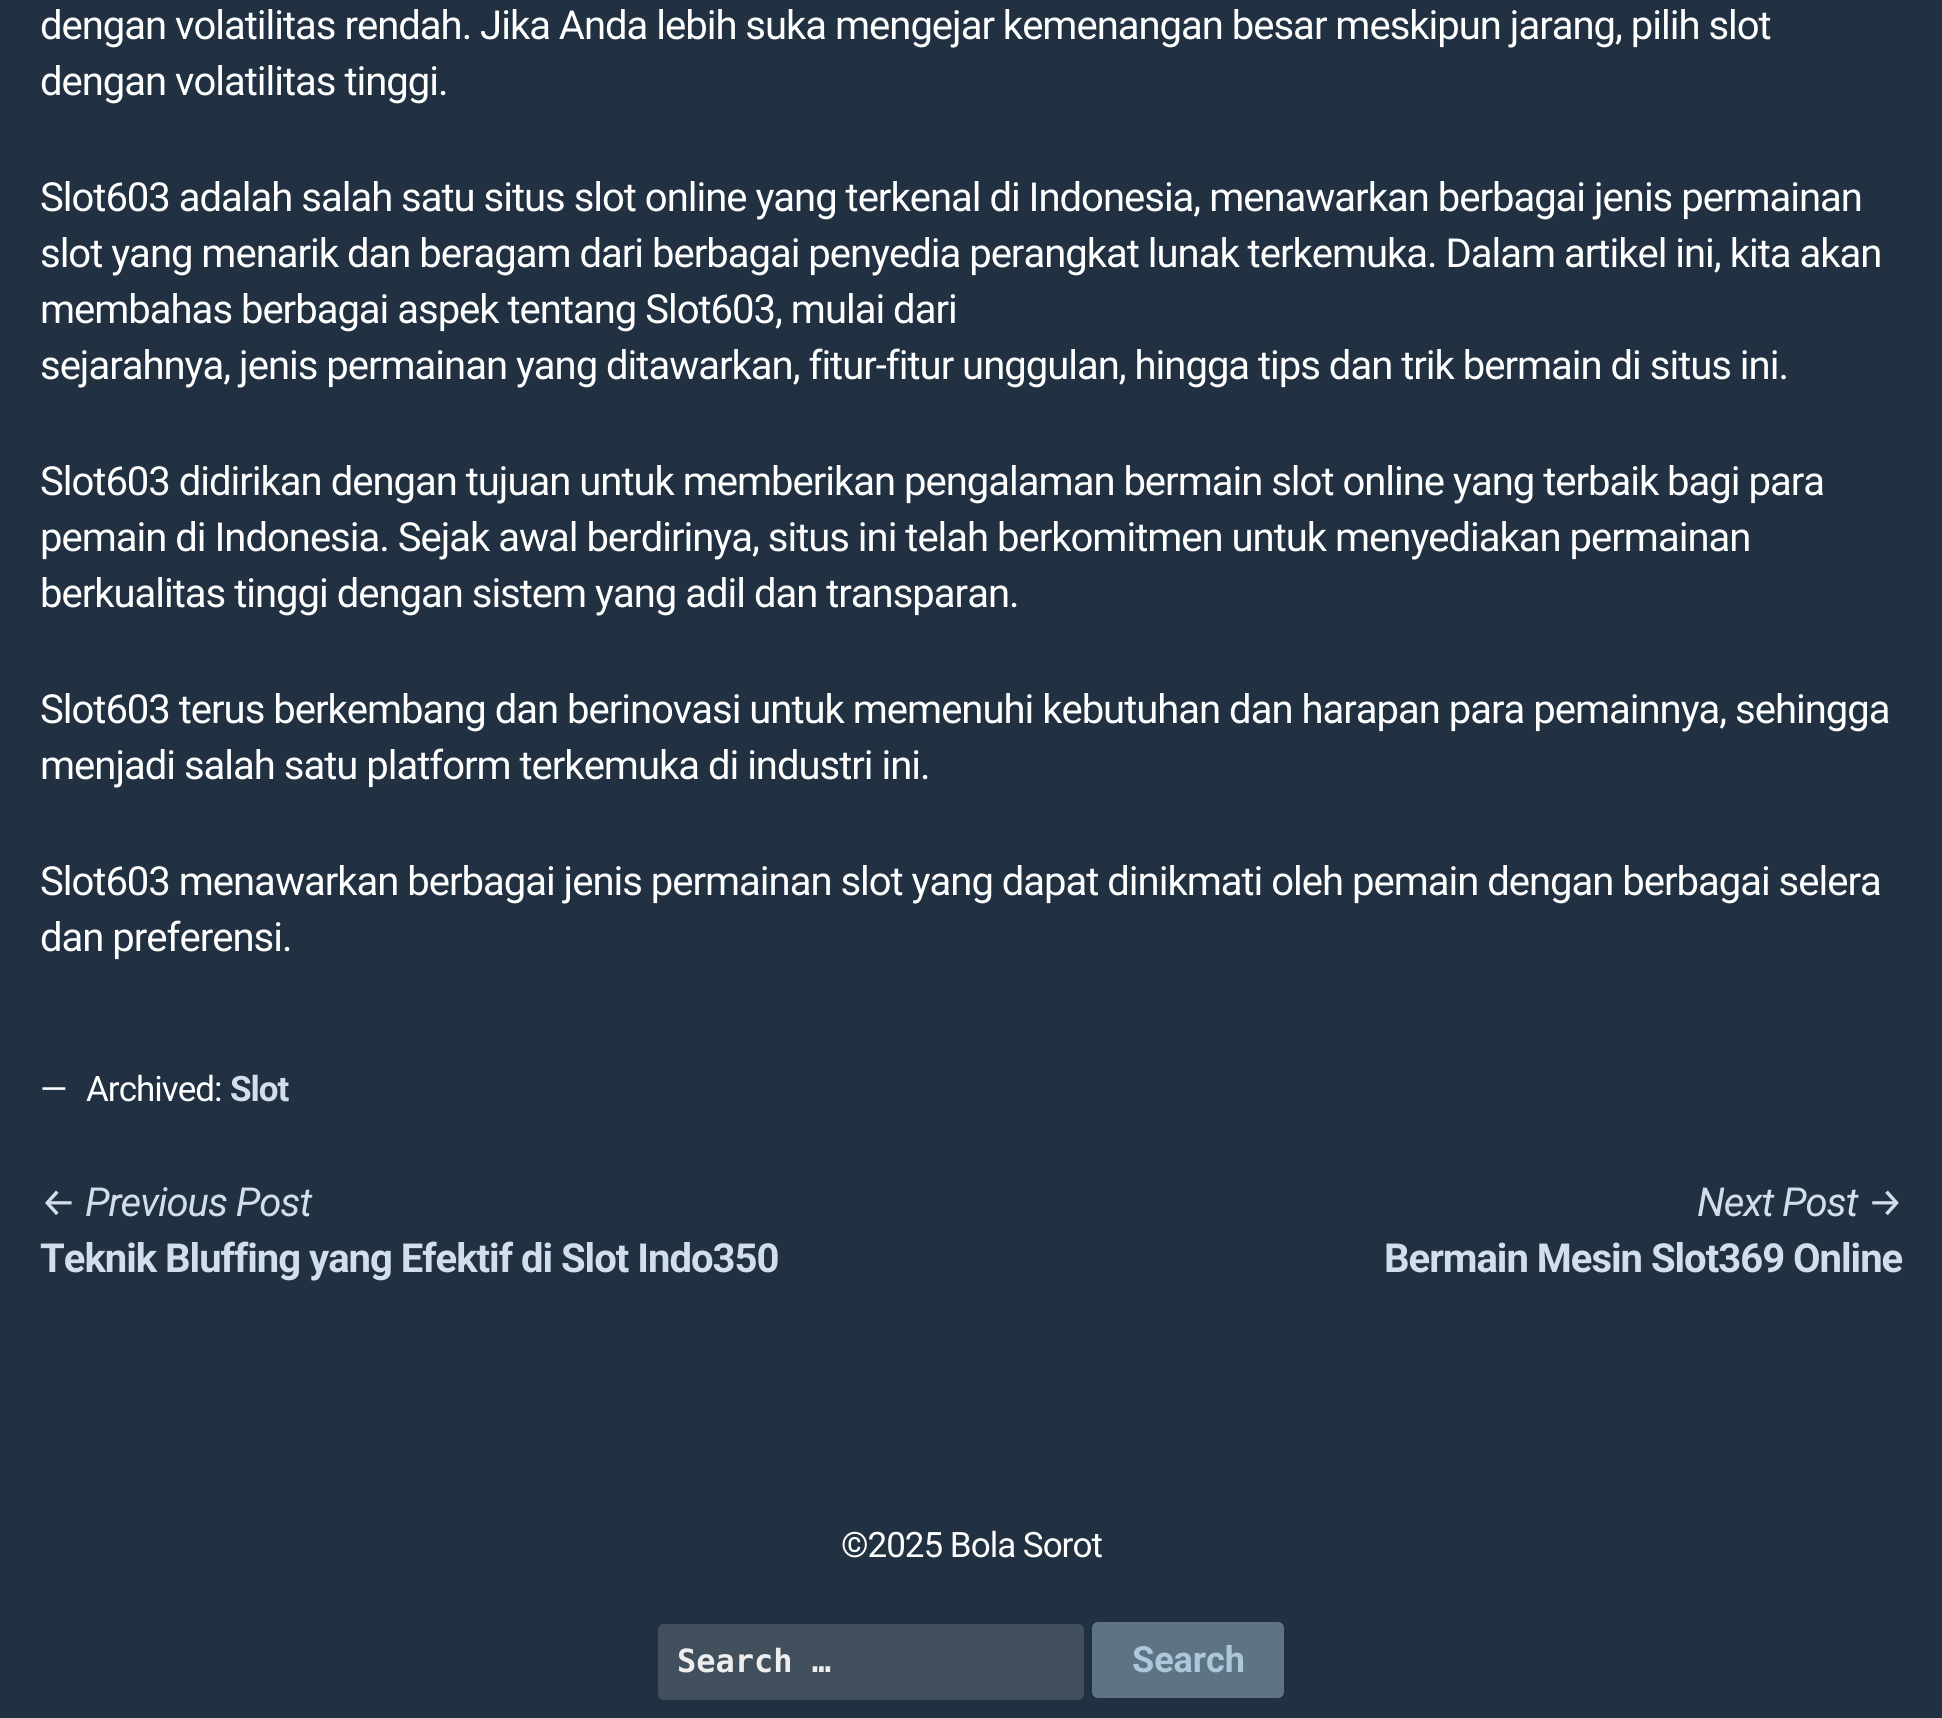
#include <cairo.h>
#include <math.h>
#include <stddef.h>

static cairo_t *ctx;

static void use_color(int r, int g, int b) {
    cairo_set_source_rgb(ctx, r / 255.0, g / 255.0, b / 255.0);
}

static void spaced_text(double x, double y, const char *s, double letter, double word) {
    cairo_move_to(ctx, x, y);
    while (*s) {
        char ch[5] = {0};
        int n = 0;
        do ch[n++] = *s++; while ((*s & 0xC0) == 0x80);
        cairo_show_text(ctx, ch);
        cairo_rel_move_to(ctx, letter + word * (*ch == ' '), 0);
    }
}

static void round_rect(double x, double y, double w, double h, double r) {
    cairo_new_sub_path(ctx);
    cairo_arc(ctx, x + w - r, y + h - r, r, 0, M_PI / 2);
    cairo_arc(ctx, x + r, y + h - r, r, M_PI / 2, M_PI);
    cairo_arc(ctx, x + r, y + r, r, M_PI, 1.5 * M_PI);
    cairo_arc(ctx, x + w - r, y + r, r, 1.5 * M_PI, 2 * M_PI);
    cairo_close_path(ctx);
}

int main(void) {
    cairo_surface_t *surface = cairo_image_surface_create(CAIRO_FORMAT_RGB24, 1942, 1718);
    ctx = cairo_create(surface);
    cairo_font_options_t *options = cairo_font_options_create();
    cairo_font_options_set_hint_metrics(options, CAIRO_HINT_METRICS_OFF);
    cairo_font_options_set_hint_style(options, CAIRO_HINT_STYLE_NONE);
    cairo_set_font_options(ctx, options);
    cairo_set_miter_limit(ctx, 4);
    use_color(33, 49, 66);
    cairo_paint(ctx);
    cairo_select_font_face(ctx, "Roboto", CAIRO_FONT_SLANT_NORMAL, CAIRO_FONT_WEIGHT_NORMAL);
    cairo_set_font_size(ctx, 40);
    use_color(255, 255, 255);
    spaced_text(40, 39, "dengan volatilitas rendah. Jika Anda lebih suka mengejar kemenangan besar meskipun jarang, pilih slot", -1, 0);
    spaced_text(40, 95, "dengan volatilitas tinggi.", -1, 0);
    spaced_text(40, 211, "Slot603 adalah salah satu situs slot online yang terkenal di Indonesia, menawarkan berbagai jenis permainan", -1, 0);
    spaced_text(40, 267, "slot yang menarik dan beragam dari berbagai penyedia perangkat lunak terkemuka. Dalam artikel ini, kita akan", -1, 0);
    spaced_text(40, 323, "membahas berbagai aspek tentang Slot603, mulai dari", -1, 0);
    spaced_text(40, 379, "sejarahnya, jenis permainan yang ditawarkan, fitur-fitur unggulan, hingga tips dan trik bermain di situs ini.", -1, 0);
    spaced_text(40, 495, "Slot603 didirikan dengan tujuan untuk memberikan pengalaman bermain slot online yang terbaik bagi para", -1, 0);
    spaced_text(40, 551, "pemain di Indonesia. Sejak awal berdirinya, situs ini telah berkomitmen untuk menyediakan permainan", -1, 0);
    spaced_text(40, 607, "berkualitas tinggi dengan sistem yang adil dan transparan.", -1, 0);
    spaced_text(40, 723, "Slot603 terus berkembang dan berinovasi untuk memenuhi kebutuhan dan harapan para pemainnya, sehingga", -1, 0);
    spaced_text(40, 779, "menjadi salah satu platform terkemuka di industri ini.", -1, 0);
    spaced_text(40, 895, "Slot603 menawarkan berbagai jenis permainan slot yang dapat dinikmati oleh pemain dengan berbagai selera", -1, 0);
    spaced_text(40, 951, "dan preferensi.", -1, 0);
    cairo_set_font_size(ctx, 35);
    spaced_text(40, 1101, "—", -1, 0);
    spaced_text(86, 1101, "Archived:", -1, 0);
    cairo_select_font_face(ctx, "Roboto", CAIRO_FONT_SLANT_NORMAL, CAIRO_FONT_WEIGHT_BOLD);
    use_color(211, 222, 236);
    spaced_text(230, 1101, "Slot", -1, 0);
    cairo_select_font_face(ctx, "Fira Sans", CAIRO_FONT_SLANT_ITALIC, CAIRO_FONT_WEIGHT_NORMAL);
    cairo_set_font_size(ctx, 40);
    spaced_text(40, 1216, "←", -1, 0);
    cairo_select_font_face(ctx, "Roboto", CAIRO_FONT_SLANT_ITALIC, CAIRO_FONT_WEIGHT_NORMAL);
    spaced_text(85, 1216, "Previous Post", -1, 0);
    cairo_select_font_face(ctx, "Roboto", CAIRO_FONT_SLANT_NORMAL, CAIRO_FONT_WEIGHT_BOLD);
    spaced_text(40, 1272, "Teknik Bluffing yang Efektif di Slot Indo350", -1, 0);
    cairo_select_font_face(ctx, "Roboto", CAIRO_FONT_SLANT_ITALIC, CAIRO_FONT_WEIGHT_NORMAL);
    spaced_text(1697, 1216, "Next Post", -1, 0);
    cairo_select_font_face(ctx, "Fira Sans", CAIRO_FONT_SLANT_ITALIC, CAIRO_FONT_WEIGHT_NORMAL);
    spaced_text(1867, 1216, "→", -1, 0);
    cairo_select_font_face(ctx, "Roboto", CAIRO_FONT_SLANT_NORMAL, CAIRO_FONT_WEIGHT_BOLD);
    spaced_text(1384, 1272, "Bermain Mesin Slot369 Online", -1, 0);
    cairo_select_font_face(ctx, "Roboto", CAIRO_FONT_SLANT_NORMAL, CAIRO_FONT_WEIGHT_NORMAL);
    cairo_set_font_size(ctx, 35);
    use_color(255, 255, 255);
    spaced_text(841, 1557, "©2025 Bola Sorot", -1, 0);
    use_color(66, 80, 94);
    round_rect(658, 1624, 426, 76, 6);
    cairo_fill(ctx);
    cairo_select_font_face(ctx, "DejaVu Sans Mono", CAIRO_FONT_SLANT_NORMAL, CAIRO_FONT_WEIGHT_BOLD);
    cairo_set_font_size(ctx, 32);
    use_color(238, 238, 238);
    cairo_move_to(ctx, 677, 1672);
    cairo_show_text(ctx, "Search …");
    use_color(94, 116, 133);
    round_rect(1092, 1622, 192, 76, 6);
    cairo_fill(ctx);
    cairo_select_font_face(ctx, "Roboto", CAIRO_FONT_SLANT_NORMAL, CAIRO_FONT_WEIGHT_BOLD);
    cairo_set_font_size(ctx, 36);
    use_color(172, 200, 218);
    cairo_move_to(ctx, 1132, 1672);
    cairo_show_text(ctx, "Search");
    cairo_surface_write_to_png(surface, "result.png");
    cairo_font_options_destroy(options);
    cairo_destroy(ctx);
    cairo_surface_destroy(surface);
    return 0;
}
